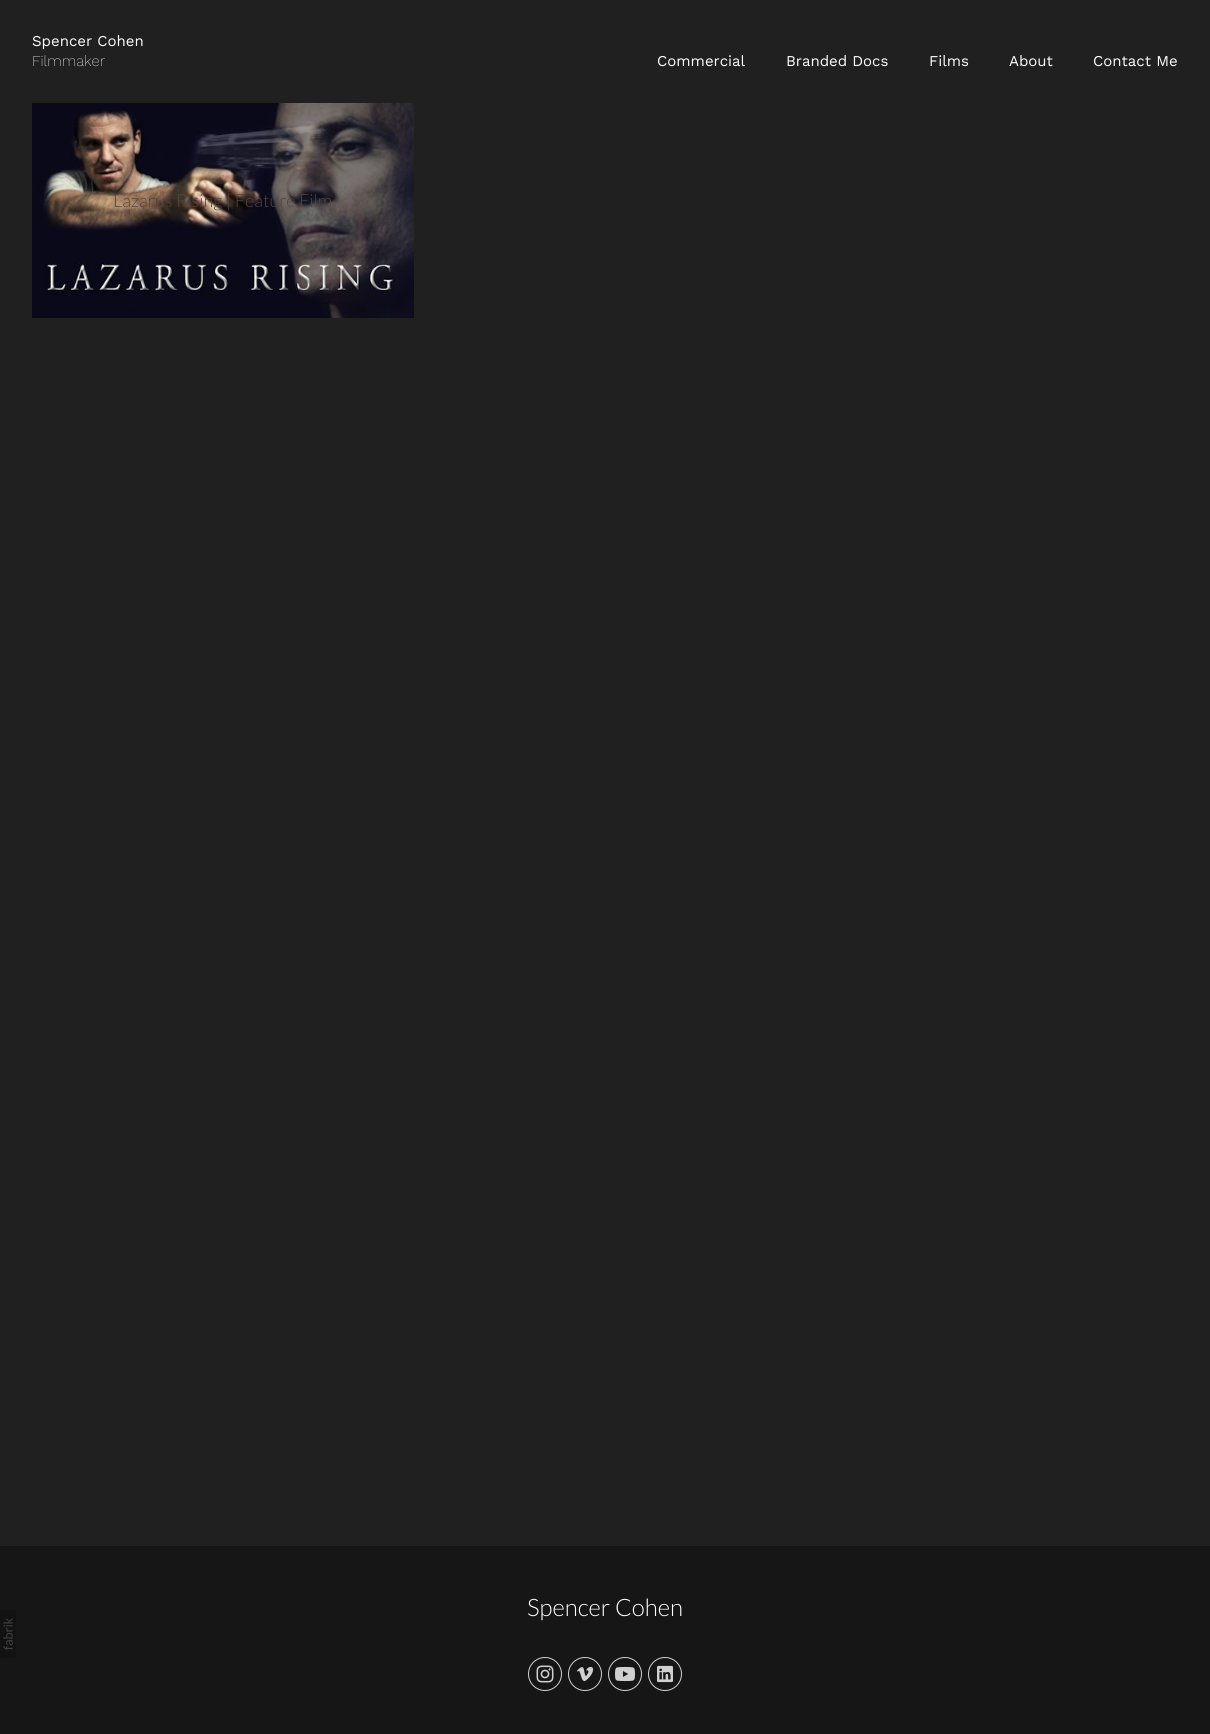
#include <cairo.h>
#include <math.h>
#include <stddef.h>

static cairo_t *ctx;

static void use_color(int r, int g, int b) {
    cairo_set_source_rgb(ctx, r / 255.0, g / 255.0, b / 255.0);
}

static void picture(const char *path, double x, double y, double w, double h) {
    cairo_surface_t *image = cairo_image_surface_create_from_png(path);
    cairo_save(ctx);
    cairo_set_source_surface(ctx, image, x, y);
    cairo_rectangle(ctx, x, y, w, h);
    cairo_fill(ctx);
    cairo_restore(ctx);
    cairo_surface_destroy(image);
}

int main(void) {
    cairo_surface_t *surface = cairo_image_surface_create(CAIRO_FORMAT_RGB24, 1210, 1734);
    ctx = cairo_create(surface);
    cairo_font_options_t *options = cairo_font_options_create();
    cairo_font_options_set_hint_metrics(options, CAIRO_HINT_METRICS_OFF);
    cairo_font_options_set_hint_style(options, CAIRO_HINT_STYLE_NONE);
    cairo_set_font_options(ctx, options);
    cairo_set_miter_limit(ctx, 4);
    use_color(32, 32, 32);
    cairo_paint(ctx);
    cairo_select_font_face(ctx, "Work Sans", CAIRO_FONT_SLANT_NORMAL, CAIRO_FONT_WEIGHT_NORMAL);
    cairo_set_font_size(ctx, 15);
    use_color(255, 255, 255);
    cairo_move_to(ctx, 32, 46);
    cairo_show_text(ctx, "Spencer Cohen");
    cairo_select_font_face(ctx, "Work Sans ExtraLight", CAIRO_FONT_SLANT_NORMAL, CAIRO_FONT_WEIGHT_NORMAL);
    cairo_move_to(ctx, 32, 66);
    cairo_show_text(ctx, "Filmmaker");
    cairo_select_font_face(ctx, "Work Sans", CAIRO_FONT_SLANT_NORMAL, CAIRO_FONT_WEIGHT_NORMAL);
    cairo_move_to(ctx, 657, 66);
    cairo_show_text(ctx, "Commercial");
    cairo_move_to(ctx, 786, 66);
    cairo_show_text(ctx, "Branded Docs");
    cairo_move_to(ctx, 929, 66);
    cairo_show_text(ctx, "Films");
    cairo_move_to(ctx, 1009, 66);
    cairo_show_text(ctx, "About");
    cairo_move_to(ctx, 1093, 66);
    cairo_show_text(ctx, "Contact Me");
    picture("img1.png", 32, 103, 382, 215);
    cairo_select_font_face(ctx, "Lato Light", CAIRO_FONT_SLANT_NORMAL, CAIRO_FONT_WEIGHT_NORMAL);
    cairo_set_font_size(ctx, 18);
    use_color(83, 68, 61);
    cairo_move_to(ctx, 113, 207);
    cairo_show_text(ctx, "Lazarus Rising | Feature Film");
    use_color(22, 22, 22);
    cairo_rectangle(ctx, 0, 1546, 1210, 188);
    cairo_fill(ctx);
    cairo_set_font_size(ctx, 24);
    use_color(255, 255, 255);
    cairo_move_to(ctx, 527, 1616);
    cairo_show_text(ctx, "Spencer Cohen");
    cairo_new_path(ctx);
    cairo_arc(ctx, 545, 1674, 16.5, 0, 2 * M_PI);
    use_color(207, 207, 207);
    cairo_set_line_width(ctx, 1);
    cairo_stroke(ctx);
    picture("img2.png", 536, 1665, 18, 18);
    cairo_arc(ctx, 585, 1674, 16.5, 0, 2 * M_PI);
    cairo_stroke(ctx);
    picture("img3.png", 577, 1666, 17, 16);
    cairo_arc(ctx, 625, 1674, 16.5, 0, 2 * M_PI);
    cairo_stroke(ctx);
    picture("img4.png", 615, 1666, 20, 16);
    cairo_arc(ctx, 665, 1674, 16.5, 0, 2 * M_PI);
    cairo_stroke(ctx);
    picture("img5.png", 657, 1665, 16, 18);
    picture("img6.png", 0, 1610, 16, 48);
    cairo_surface_write_to_png(surface, "result.png");
    cairo_font_options_destroy(options);
    cairo_destroy(ctx);
    cairo_surface_destroy(surface);
    return 0;
}
